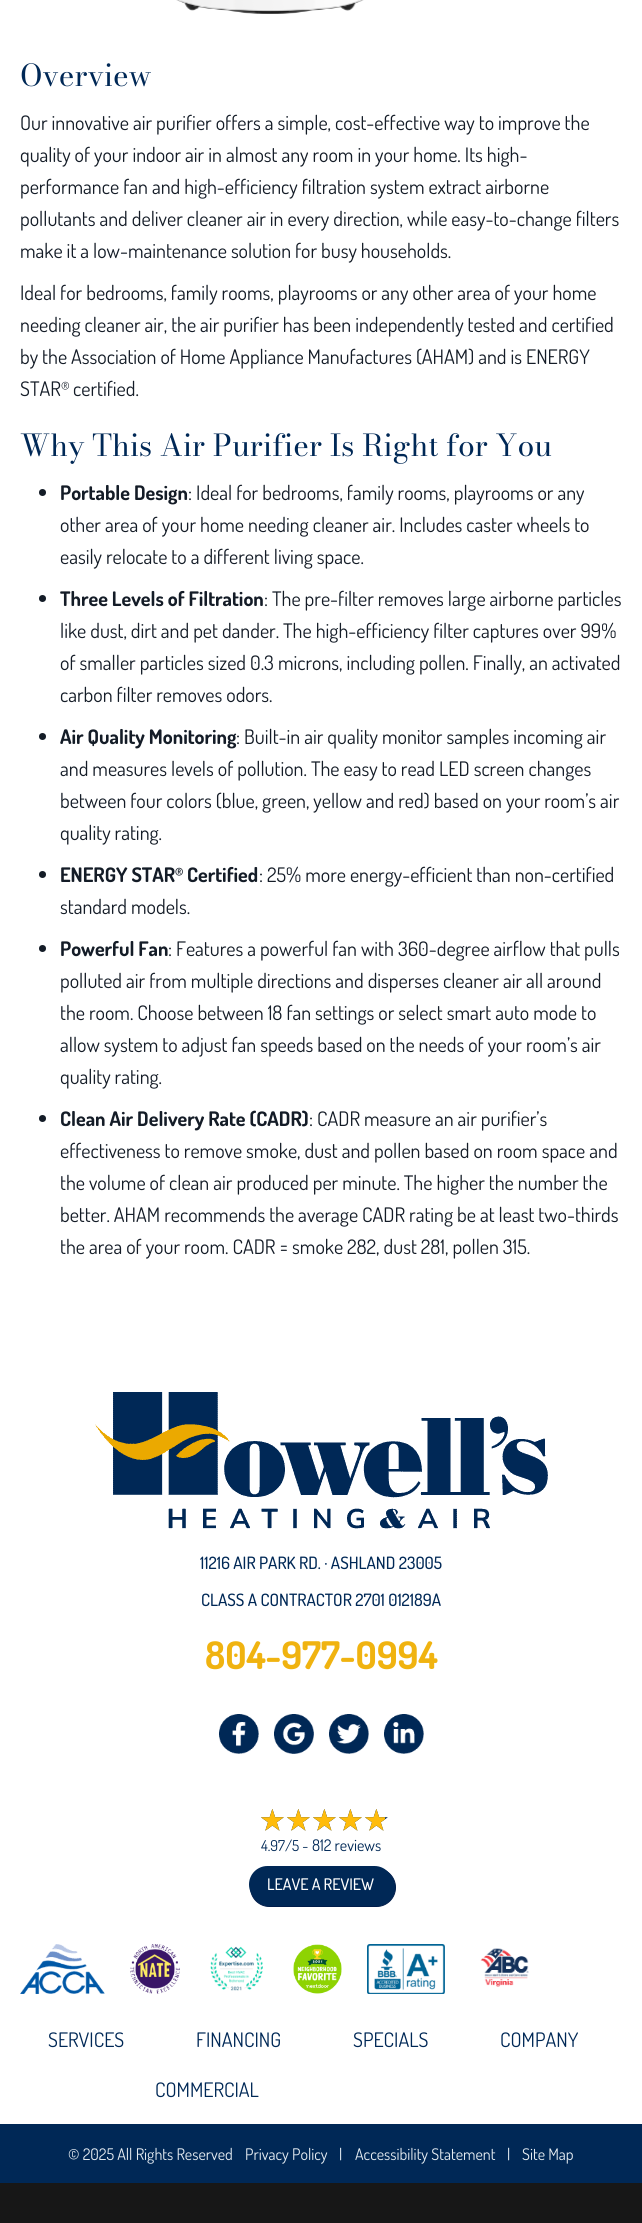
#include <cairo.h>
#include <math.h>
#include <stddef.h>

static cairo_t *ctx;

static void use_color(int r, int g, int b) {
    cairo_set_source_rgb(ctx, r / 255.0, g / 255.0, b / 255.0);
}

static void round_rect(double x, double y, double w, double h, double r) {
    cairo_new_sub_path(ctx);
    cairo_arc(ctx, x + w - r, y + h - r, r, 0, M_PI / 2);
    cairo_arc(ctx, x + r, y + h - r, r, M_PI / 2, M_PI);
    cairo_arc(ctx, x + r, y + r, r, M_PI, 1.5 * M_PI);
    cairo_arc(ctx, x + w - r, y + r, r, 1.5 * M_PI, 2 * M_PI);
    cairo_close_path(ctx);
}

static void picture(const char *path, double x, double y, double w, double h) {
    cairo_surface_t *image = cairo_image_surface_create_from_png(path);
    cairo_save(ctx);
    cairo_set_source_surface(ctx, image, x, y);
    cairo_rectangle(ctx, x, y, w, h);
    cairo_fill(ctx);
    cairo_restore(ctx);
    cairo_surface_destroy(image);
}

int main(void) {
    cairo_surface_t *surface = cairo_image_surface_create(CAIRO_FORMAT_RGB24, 642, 2223);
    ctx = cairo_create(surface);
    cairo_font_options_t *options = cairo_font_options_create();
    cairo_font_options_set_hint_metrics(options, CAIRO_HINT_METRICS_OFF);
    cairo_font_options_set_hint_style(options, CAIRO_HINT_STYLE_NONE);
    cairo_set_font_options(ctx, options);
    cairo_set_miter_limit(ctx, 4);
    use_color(255, 255, 255);
    cairo_paint(ctx);
    picture("img1.png", 176, 0, 188, 14);
    cairo_select_font_face(ctx, "Bodoni Moda", CAIRO_FONT_SLANT_NORMAL, CAIRO_FONT_WEIGHT_NORMAL);
    cairo_set_font_size(ctx, 30);
    use_color(0, 40, 86);
    cairo_move_to(ctx, 20, 86);
    cairo_show_text(ctx, "Overview");
    cairo_select_font_face(ctx, "Dosis", CAIRO_FONT_SLANT_NORMAL, CAIRO_FONT_WEIGHT_NORMAL);
    cairo_set_font_size(ctx, 20);
    use_color(20, 28, 39);
    cairo_move_to(ctx, 20, 130);
    cairo_show_text(ctx, "Our innovative air purifier offers a simple, cost-effective way to improve the");
    cairo_move_to(ctx, 20, 162);
    cairo_show_text(ctx, "quality of your indoor air in almost any room in your home. Its high-");
    cairo_move_to(ctx, 20, 194);
    cairo_show_text(ctx, "performance fan and high-efficiency filtration system extract airborne");
    cairo_move_to(ctx, 20, 226);
    cairo_show_text(ctx, "pollutants and deliver cleaner air in every direction, while easy-to-change filters");
    cairo_move_to(ctx, 20, 258);
    cairo_show_text(ctx, "make it a low-maintenance solution for busy households.");
    cairo_move_to(ctx, 20, 300);
    cairo_show_text(ctx, "Ideal for bedrooms, family rooms, playrooms or any other area of your home");
    cairo_move_to(ctx, 20, 332);
    cairo_show_text(ctx, "needing cleaner air, the air purifier has been independently tested and certified");
    cairo_move_to(ctx, 20, 364);
    cairo_show_text(ctx, "by the Association of Home Appliance Manufactures (AHAM) and is ENERGY");
    cairo_move_to(ctx, 20, 396);
    cairo_show_text(ctx, "STAR");
    cairo_set_font_size(ctx, 12);
    cairo_move_to(ctx, 61, 390);
    cairo_show_text(ctx, "®");
    cairo_set_font_size(ctx, 20);
    cairo_move_to(ctx, 73, 396);
    cairo_show_text(ctx, "certified.");
    cairo_select_font_face(ctx, "Bodoni Moda", CAIRO_FONT_SLANT_NORMAL, CAIRO_FONT_WEIGHT_NORMAL);
    cairo_set_font_size(ctx, 30);
    use_color(0, 40, 86);
    cairo_move_to(ctx, 20, 456);
    cairo_show_text(ctx, "Why This Air Purifier Is Right for You");
    use_color(20, 28, 39);
    cairo_new_path(ctx);
    cairo_arc(ctx, 42.5, 492.5, 3.5, 0, 2 * M_PI);
    cairo_fill(ctx);
    cairo_select_font_face(ctx, "Dosis", CAIRO_FONT_SLANT_NORMAL, CAIRO_FONT_WEIGHT_BOLD);
    cairo_set_font_size(ctx, 20);
    cairo_move_to(ctx, 60, 500);
    cairo_show_text(ctx, "Portable Design");
    cairo_select_font_face(ctx, "Dosis", CAIRO_FONT_SLANT_NORMAL, CAIRO_FONT_WEIGHT_NORMAL);
    cairo_move_to(ctx, 188, 500);
    cairo_show_text(ctx, ": Ideal for bedrooms, family rooms, playrooms or any");
    cairo_move_to(ctx, 60, 532);
    cairo_show_text(ctx, "other area of your home needing cleaner air. Includes caster wheels to");
    cairo_move_to(ctx, 60, 564);
    cairo_show_text(ctx, "easily relocate to a different living space.");
    cairo_new_path(ctx);
    cairo_arc(ctx, 42.5, 598.5, 3.5, 0, 2 * M_PI);
    cairo_fill(ctx);
    cairo_select_font_face(ctx, "Dosis", CAIRO_FONT_SLANT_NORMAL, CAIRO_FONT_WEIGHT_BOLD);
    cairo_move_to(ctx, 60, 606);
    cairo_show_text(ctx, "Three Levels of Filtration");
    cairo_select_font_face(ctx, "Dosis", CAIRO_FONT_SLANT_NORMAL, CAIRO_FONT_WEIGHT_NORMAL);
    cairo_move_to(ctx, 264, 606);
    cairo_show_text(ctx, ": The pre-filter removes large airborne particles");
    cairo_move_to(ctx, 60, 638);
    cairo_show_text(ctx, "like dust, dirt and pet dander. The high-efficiency filter captures over 99%");
    cairo_move_to(ctx, 60, 670);
    cairo_show_text(ctx, "of smaller particles sized 0.3 microns, including pollen. Finally, an activated");
    cairo_move_to(ctx, 60, 702);
    cairo_show_text(ctx, "carbon filter removes odors.");
    cairo_new_path(ctx);
    cairo_arc(ctx, 42.5, 736.5, 3.5, 0, 2 * M_PI);
    cairo_fill(ctx);
    cairo_select_font_face(ctx, "Dosis", CAIRO_FONT_SLANT_NORMAL, CAIRO_FONT_WEIGHT_BOLD);
    cairo_move_to(ctx, 60, 744);
    cairo_show_text(ctx, "Air Quality Monitoring");
    cairo_select_font_face(ctx, "Dosis", CAIRO_FONT_SLANT_NORMAL, CAIRO_FONT_WEIGHT_NORMAL);
    cairo_move_to(ctx, 236, 744);
    cairo_show_text(ctx, ": Built-in air quality monitor samples incoming air");
    cairo_move_to(ctx, 60, 776);
    cairo_show_text(ctx, "and measures levels of pollution. The easy to read LED screen changes");
    cairo_move_to(ctx, 60, 808);
    cairo_show_text(ctx, "between four colors (blue, green, yellow and red) based on your room’s air");
    cairo_move_to(ctx, 60, 840);
    cairo_show_text(ctx, "quality rating.");
    cairo_new_path(ctx);
    cairo_arc(ctx, 42.5, 874.5, 3.5, 0, 2 * M_PI);
    cairo_fill(ctx);
    cairo_select_font_face(ctx, "Dosis", CAIRO_FONT_SLANT_NORMAL, CAIRO_FONT_WEIGHT_BOLD);
    cairo_move_to(ctx, 60, 882);
    cairo_show_text(ctx, "ENERGY STAR");
    cairo_set_font_size(ctx, 12);
    cairo_move_to(ctx, 175, 876);
    cairo_show_text(ctx, "®");
    cairo_set_font_size(ctx, 20);
    cairo_move_to(ctx, 187, 882);
    cairo_show_text(ctx, "Certified");
    cairo_select_font_face(ctx, "Dosis", CAIRO_FONT_SLANT_NORMAL, CAIRO_FONT_WEIGHT_NORMAL);
    cairo_move_to(ctx, 259, 882);
    cairo_show_text(ctx, ": 25% more energy-efficient than non-certified");
    cairo_move_to(ctx, 60, 914);
    cairo_show_text(ctx, "standard models.");
    cairo_new_path(ctx);
    cairo_arc(ctx, 42.5, 948.5, 3.5, 0, 2 * M_PI);
    cairo_fill(ctx);
    cairo_select_font_face(ctx, "Dosis", CAIRO_FONT_SLANT_NORMAL, CAIRO_FONT_WEIGHT_BOLD);
    cairo_move_to(ctx, 60, 956);
    cairo_show_text(ctx, "Powerful Fan");
    cairo_select_font_face(ctx, "Dosis", CAIRO_FONT_SLANT_NORMAL, CAIRO_FONT_WEIGHT_NORMAL);
    cairo_move_to(ctx, 168, 956);
    cairo_show_text(ctx, ": Features a powerful fan with 360-degree airflow that pulls");
    cairo_move_to(ctx, 60, 988);
    cairo_show_text(ctx, "polluted air from multiple directions and disperses cleaner air all around");
    cairo_move_to(ctx, 60, 1020);
    cairo_show_text(ctx, "the room. Choose between 18 fan settings or select smart auto mode to");
    cairo_move_to(ctx, 60, 1052);
    cairo_show_text(ctx, "allow system to adjust fan speeds based on the needs of your room’s air");
    cairo_move_to(ctx, 60, 1084);
    cairo_show_text(ctx, "quality rating.");
    cairo_new_path(ctx);
    cairo_arc(ctx, 42.5, 1118.5, 3.5, 0, 2 * M_PI);
    cairo_fill(ctx);
    cairo_select_font_face(ctx, "Dosis", CAIRO_FONT_SLANT_NORMAL, CAIRO_FONT_WEIGHT_BOLD);
    cairo_move_to(ctx, 60, 1126);
    cairo_show_text(ctx, "Clean Air Delivery Rate (CADR)");
    cairo_select_font_face(ctx, "Dosis", CAIRO_FONT_SLANT_NORMAL, CAIRO_FONT_WEIGHT_NORMAL);
    cairo_move_to(ctx, 309, 1126);
    cairo_show_text(ctx, ": CADR measure an air purifier’s");
    cairo_move_to(ctx, 60, 1158);
    cairo_show_text(ctx, "effectiveness to remove smoke, dust and pollen based on room space and");
    cairo_move_to(ctx, 60, 1190);
    cairo_show_text(ctx, "the volume of clean air produced per minute. The higher the number the");
    cairo_move_to(ctx, 60, 1222);
    cairo_show_text(ctx, "better. AHAM recommends the average CADR rating be at least two-thirds");
    cairo_move_to(ctx, 60, 1254);
    cairo_show_text(ctx, "the area of your room. CADR = smoke 282, dust 281, pollen 315.");
    picture("img2.png", 95, 1392, 453, 137);
    cairo_select_font_face(ctx, "Dosis Medium", CAIRO_FONT_SLANT_NORMAL, CAIRO_FONT_WEIGHT_NORMAL);
    cairo_set_font_size(ctx, 17);
    use_color(0, 40, 86);
    cairo_move_to(ctx, 200, 1569);
    cairo_show_text(ctx, "11216 AIR PARK RD. · ASHLAND 23005");
    cairo_move_to(ctx, 201, 1606);
    cairo_show_text(ctx, "CLASS A CONTRACTOR 2701 012189A");
    cairo_select_font_face(ctx, "Dosis", CAIRO_FONT_SLANT_NORMAL, CAIRO_FONT_WEIGHT_BOLD);
    cairo_set_font_size(ctx, 38);
    use_color(240, 179, 16);
    cairo_move_to(ctx, 205, 1669);
    cairo_show_text(ctx, "804-977-0994");
    picture("img3.png", 219, 1714, 40, 40);
    picture("img4.png", 274, 1714, 40, 40);
    picture("img5.png", 329, 1714, 40, 40);
    picture("img6.png", 384, 1714, 40, 40);
    picture("img7.png", 261, 1809, 23, 22);
    picture("img8.png", 261, 1809, 23, 22);
    picture("img7.png", 287, 1809, 23, 22);
    picture("img8.png", 287, 1809, 23, 22);
    picture("img7.png", 313, 1809, 23, 22);
    picture("img8.png", 313, 1809, 23, 22);
    picture("img7.png", 339, 1809, 23, 22);
    picture("img8.png", 339, 1809, 23, 22);
    picture("img7.png", 365, 1809, 23, 22);
    picture("img9.png", 365, 1809, 20, 22);
    cairo_select_font_face(ctx, "Dosis", CAIRO_FONT_SLANT_NORMAL, CAIRO_FONT_WEIGHT_NORMAL);
    cairo_set_font_size(ctx, 15);
    use_color(0, 40, 86);
    cairo_move_to(ctx, 261, 1851);
    cairo_show_text(ctx, "4.97/5 -");
    cairo_set_font_size(ctx, 16);
    cairo_move_to(ctx, 312, 1851);
    cairo_show_text(ctx, "812 reviews");
    round_rect(250.5, 1868.5, 145, 38, 19);
    cairo_fill_preserve(ctx);
    use_color(0, 28, 74);
    cairo_set_line_width(ctx, 1);
    cairo_stroke(ctx);
    use_color(0, 40, 86);
    round_rect(249, 1866, 144, 37, 18.5);
    cairo_fill(ctx);
    cairo_select_font_face(ctx, "Dosis Medium", CAIRO_FONT_SLANT_NORMAL, CAIRO_FONT_WEIGHT_NORMAL);
    use_color(255, 255, 255);
    cairo_move_to(ctx, 267, 1890);
    cairo_show_text(ctx, "LEAVE A REVIEW");
    picture("img10.png", 20, 1944, 85, 50);
    picture("img11.png", 130, 1944, 50, 50);
    picture("img12.png", 210, 1946, 53, 45);
    picture("img13.png", 293, 1944, 49, 50);
    picture("img14.png", 367, 1944, 78, 50);
    picture("img15.png", 480, 1948, 49, 39);
    cairo_select_font_face(ctx, "Dosis", CAIRO_FONT_SLANT_NORMAL, CAIRO_FONT_WEIGHT_NORMAL);
    cairo_set_font_size(ctx, 20);
    use_color(0, 40, 86);
    cairo_move_to(ctx, 48, 2047);
    cairo_show_text(ctx, "SERVICES");
    cairo_move_to(ctx, 196, 2047);
    cairo_show_text(ctx, "FINANCING");
    cairo_move_to(ctx, 353, 2047);
    cairo_show_text(ctx, "SPECIALS");
    cairo_move_to(ctx, 500, 2047);
    cairo_show_text(ctx, "COMPANY");
    cairo_move_to(ctx, 155, 2097);
    cairo_show_text(ctx, "COMMERCIAL");
    cairo_rectangle(ctx, 0, 2124, 642, 59);
    cairo_fill(ctx);
    cairo_set_font_size(ctx, 16);
    use_color(229, 236, 242);
    cairo_move_to(ctx, 68, 2160);
    cairo_show_text(ctx, "© 2025 All Rights Reserved");
    cairo_move_to(ctx, 245, 2160);
    cairo_show_text(ctx, "Privacy Policy");
    cairo_move_to(ctx, 339, 2160);
    cairo_show_text(ctx, "|");
    cairo_move_to(ctx, 355, 2160);
    cairo_show_text(ctx, "Accessibility Statement");
    cairo_move_to(ctx, 507, 2160);
    cairo_show_text(ctx, "|");
    cairo_move_to(ctx, 522, 2160);
    cairo_show_text(ctx, "Site Map");
    use_color(23, 23, 23);
    cairo_rectangle(ctx, 0, 2183, 642, 40);
    cairo_fill(ctx);
    cairo_surface_write_to_png(surface, "result.png");
    cairo_font_options_destroy(options);
    cairo_destroy(ctx);
    cairo_surface_destroy(surface);
    return 0;
}
